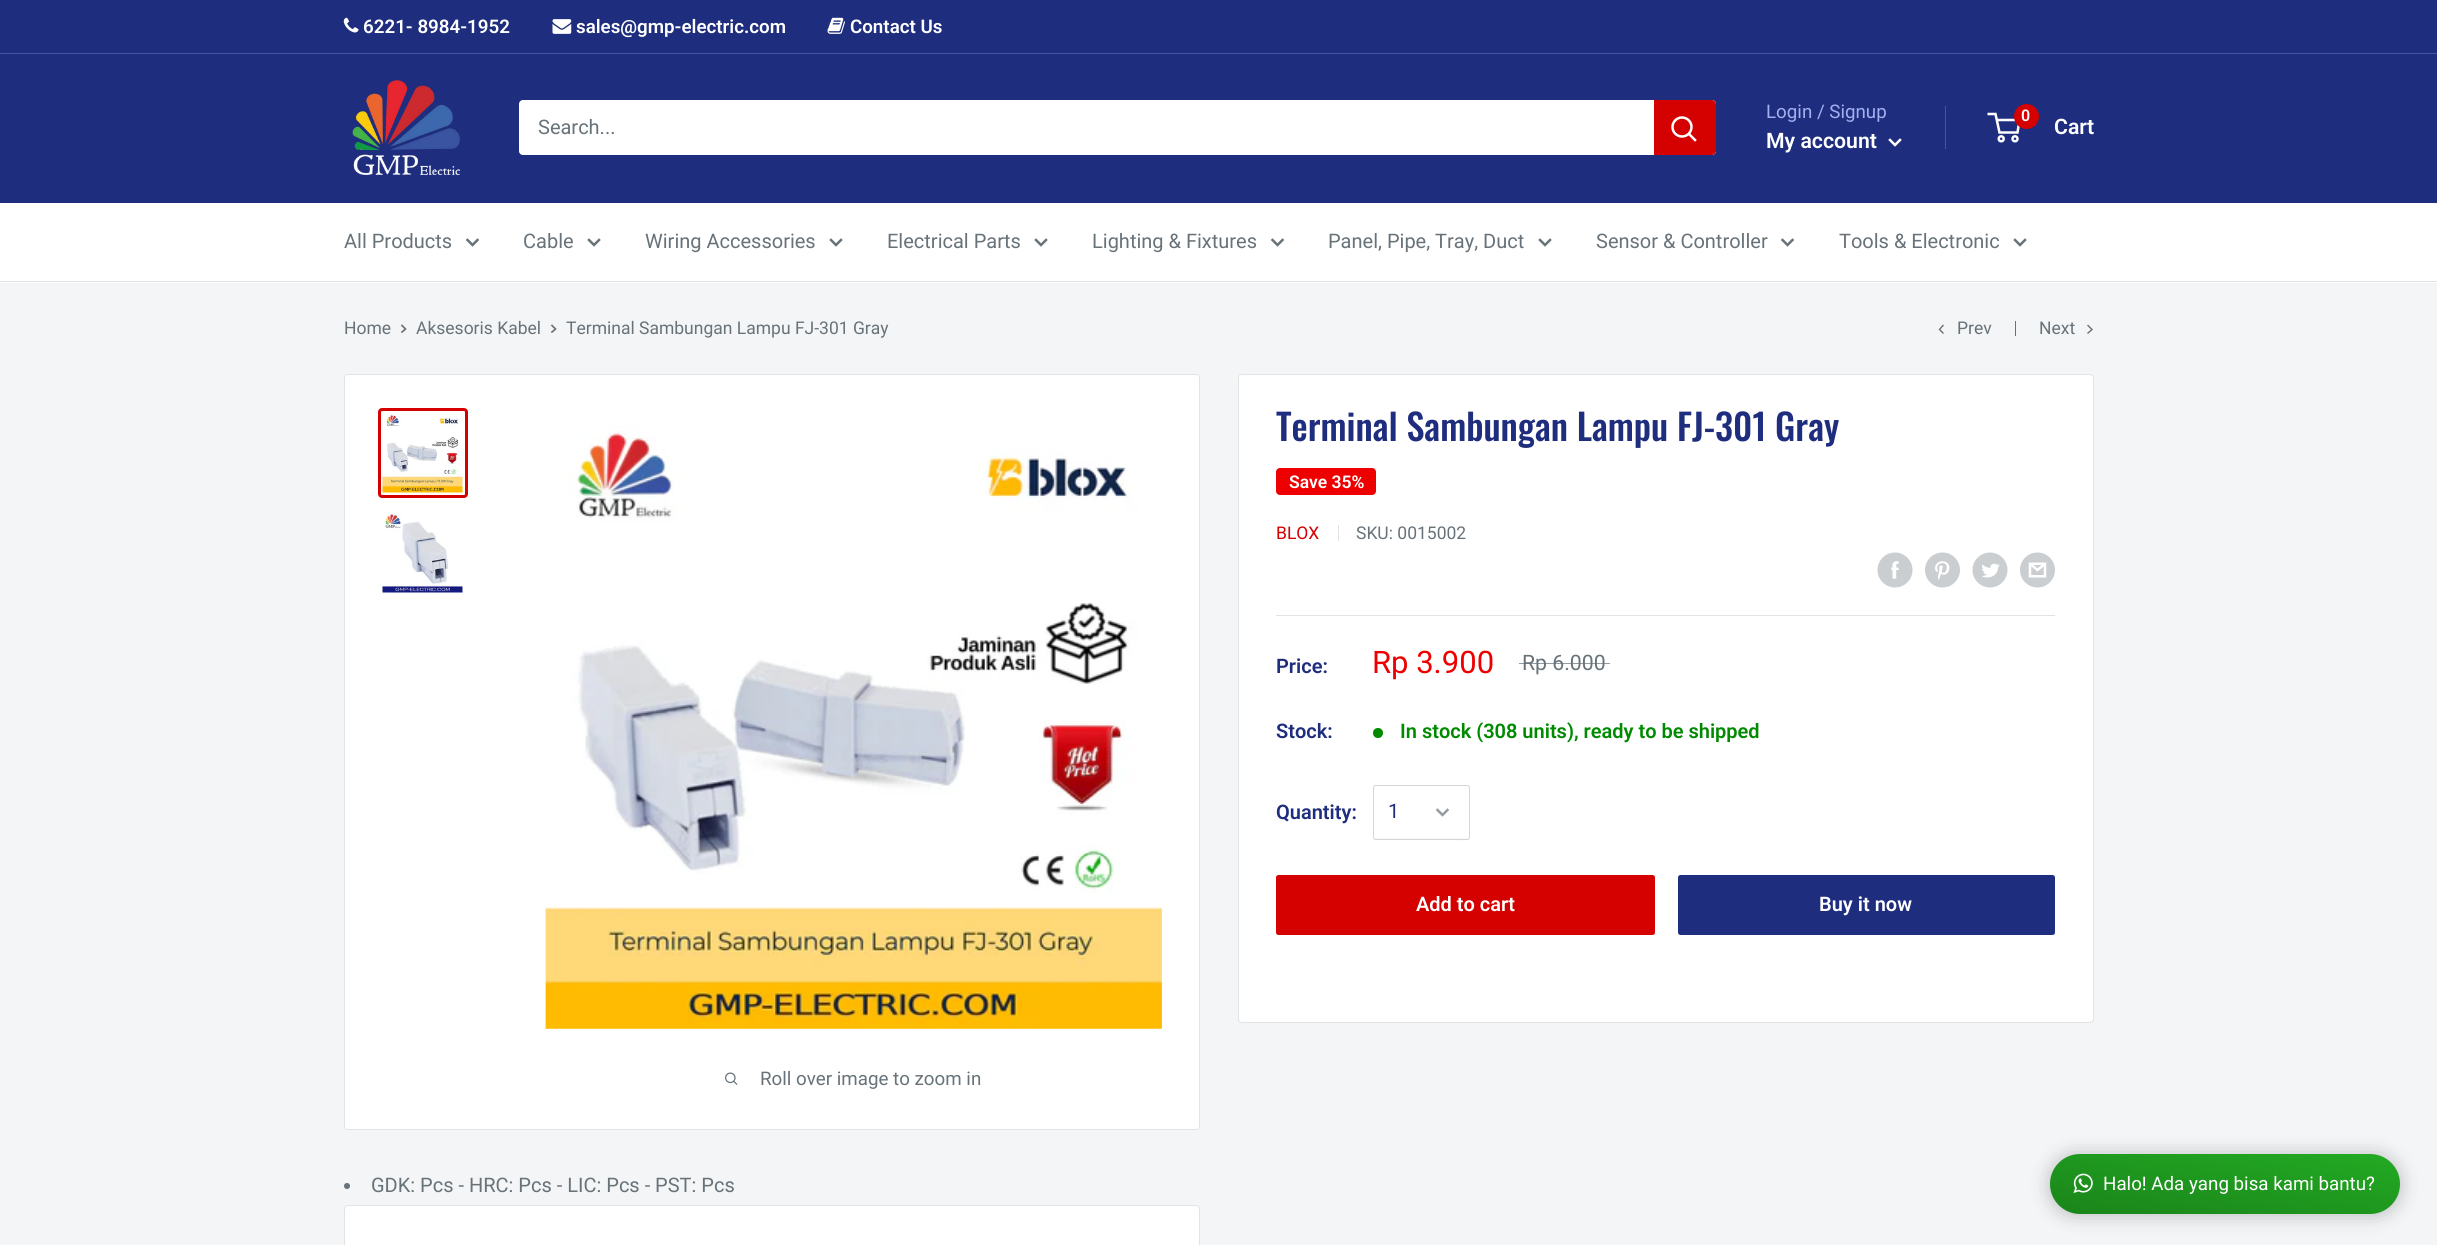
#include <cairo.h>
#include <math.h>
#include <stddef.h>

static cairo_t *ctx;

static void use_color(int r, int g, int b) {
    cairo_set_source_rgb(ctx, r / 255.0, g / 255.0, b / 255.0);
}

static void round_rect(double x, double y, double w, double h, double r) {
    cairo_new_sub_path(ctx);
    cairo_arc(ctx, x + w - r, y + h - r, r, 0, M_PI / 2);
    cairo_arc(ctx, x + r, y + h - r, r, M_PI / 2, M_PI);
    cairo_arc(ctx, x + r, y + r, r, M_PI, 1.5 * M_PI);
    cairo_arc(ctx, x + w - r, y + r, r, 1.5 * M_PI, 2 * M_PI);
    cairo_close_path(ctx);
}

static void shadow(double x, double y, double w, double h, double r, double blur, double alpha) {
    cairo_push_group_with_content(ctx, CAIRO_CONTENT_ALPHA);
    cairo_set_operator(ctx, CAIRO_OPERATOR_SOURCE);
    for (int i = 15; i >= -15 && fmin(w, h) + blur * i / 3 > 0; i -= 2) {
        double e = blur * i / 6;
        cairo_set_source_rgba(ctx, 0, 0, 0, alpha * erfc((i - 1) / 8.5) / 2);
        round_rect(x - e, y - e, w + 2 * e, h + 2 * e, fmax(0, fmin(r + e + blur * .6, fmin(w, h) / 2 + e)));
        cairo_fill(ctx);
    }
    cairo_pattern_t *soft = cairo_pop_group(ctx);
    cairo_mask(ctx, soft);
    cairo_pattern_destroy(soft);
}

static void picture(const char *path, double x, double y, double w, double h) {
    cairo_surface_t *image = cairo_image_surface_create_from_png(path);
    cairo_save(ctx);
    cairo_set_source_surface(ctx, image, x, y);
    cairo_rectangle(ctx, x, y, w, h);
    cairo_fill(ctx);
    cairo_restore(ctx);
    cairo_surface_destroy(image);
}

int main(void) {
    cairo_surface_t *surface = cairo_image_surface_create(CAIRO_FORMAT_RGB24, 2437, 1245);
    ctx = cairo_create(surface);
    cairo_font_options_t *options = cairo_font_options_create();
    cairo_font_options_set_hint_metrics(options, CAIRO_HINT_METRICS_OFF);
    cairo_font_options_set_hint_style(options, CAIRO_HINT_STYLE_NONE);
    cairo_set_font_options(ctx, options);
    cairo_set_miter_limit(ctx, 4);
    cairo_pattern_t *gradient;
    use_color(243, 245, 246);
    cairo_paint(ctx);
    use_color(30, 45, 125);
    cairo_rectangle(ctx, 0, 0, 2437, 53);
    cairo_fill(ctx);
    use_color(70, 84, 159);
    cairo_rectangle(ctx, 0, 53, 2437, 1);
    cairo_fill(ctx);
    picture("img1.png", 343, 17, 16, 16);
    cairo_select_font_face(ctx, "Roboto SemiBold", CAIRO_FONT_SLANT_NORMAL, CAIRO_FONT_WEIGHT_NORMAL);
    cairo_set_font_size(ctx, 18.75);
    use_color(255, 255, 255);
    cairo_move_to(ctx, 363, 33);
    cairo_show_text(ctx, "6221- 8984-1952");
    picture("img2.png", 552, 19, 20, 15);
    cairo_move_to(ctx, 576, 33);
    cairo_show_text(ctx, "sales@gmp-electric.com");
    picture("img3.png", 827, 17, 18, 17);
    cairo_move_to(ctx, 850, 33);
    cairo_show_text(ctx, "Contact Us");
    use_color(30, 45, 125);
    cairo_rectangle(ctx, 0, 54, 2437, 149);
    cairo_fill(ctx);
    picture("img4.png", 352, 80, 109, 96);
    use_color(255, 255, 255);
    round_rect(519, 100, 1197, 55, 4);
    cairo_fill(ctx);
    cairo_select_font_face(ctx, "Roboto", CAIRO_FONT_SLANT_NORMAL, CAIRO_FONT_WEIGHT_NORMAL);
    cairo_set_font_size(ctx, 20);
    use_color(103, 114, 121);
    cairo_move_to(ctx, 538, 134);
    cairo_show_text(ctx, "Search...");
    use_color(213, 0, 0);
    cairo_new_path(ctx);
    cairo_move_to(ctx, 1654, 100);
    cairo_line_to(ctx, 1712, 100);
    cairo_curve_to(ctx, 1714, 100, 1716, 102, 1716, 104);
    cairo_line_to(ctx, 1716, 151);
    cairo_curve_to(ctx, 1716, 153, 1714, 155, 1712, 155);
    cairo_line_to(ctx, 1654, 155);
    cairo_close_path(ctx);
    cairo_fill(ctx);
    cairo_new_path(ctx);
    cairo_move_to(ctx, 1695, 140);
    cairo_line_to(ctx, 1689, 134);
    use_color(255, 255, 255);
    cairo_set_line_width(ctx, 2.5);
    cairo_set_line_cap(ctx, CAIRO_LINE_CAP_SQUARE);
    cairo_stroke(ctx);
    cairo_arc(ctx, 1682, 127, 9.5, 0, 2 * M_PI);
    cairo_set_line_cap(ctx, CAIRO_LINE_CAP_BUTT);
    cairo_stroke(ctx);
    cairo_set_font_size(ctx, 18.75);
    use_color(163, 175, 239);
    cairo_move_to(ctx, 1766, 118);
    cairo_show_text(ctx, "Login / Signup");
    use_color(70, 84, 159);
    cairo_rectangle(ctx, 1945, 106, 1, 43);
    cairo_fill(ctx);
    cairo_select_font_face(ctx, "Roboto SemiBold", CAIRO_FONT_SLANT_NORMAL, CAIRO_FONT_WEIGHT_NORMAL);
    cairo_set_font_size(ctx, 21.25);
    use_color(255, 255, 255);
    cairo_move_to(ctx, 1766, 148);
    cairo_show_text(ctx, "My account");
    cairo_new_path(ctx);
    cairo_move_to(ctx, 1900, 140);
    cairo_line_to(ctx, 1895, 145);
    cairo_line_to(ctx, 1890, 140);
    cairo_set_line_cap(ctx, CAIRO_LINE_CAP_SQUARE);
    cairo_stroke(ctx);
    cairo_arc(ctx, 2001.2, 138.8, 2.5, 0, 2 * M_PI);
    cairo_set_line_cap(ctx, CAIRO_LINE_CAP_BUTT);
    cairo_stroke(ctx);
    cairo_arc(ctx, 2015, 138.8, 2.5, 0, 2 * M_PI);
    cairo_stroke(ctx);
    cairo_new_path(ctx);
    cairo_move_to(ctx, 1996.5, 120);
    cairo_line_to(ctx, 2019.5, 120);
    cairo_line_to(ctx, 2017.5, 132.5);
    cairo_line_to(ctx, 1999.5, 132.5);
    cairo_line_to(ctx, 1995.5, 114);
    cairo_line_to(ctx, 1987.5, 114);
    cairo_stroke(ctx);
    use_color(213, 0, 0);
    cairo_arc(ctx, 2026.5, 116.5, 12.5, 0, 2 * M_PI);
    cairo_fill(ctx);
    cairo_set_font_size(ctx, 16);
    use_color(255, 255, 255);
    cairo_move_to(ctx, 2021, 121);
    cairo_show_text(ctx, "0");
    cairo_set_font_size(ctx, 21.25);
    cairo_move_to(ctx, 2054, 134);
    cairo_show_text(ctx, "Cart");
    cairo_rectangle(ctx, 0, 203, 2437, 80);
    cairo_fill(ctx);
    use_color(225, 227, 228);
    cairo_rectangle(ctx, 0, 281, 2437, 1);
    cairo_fill(ctx);
    cairo_select_font_face(ctx, "Roboto", CAIRO_FONT_SLANT_NORMAL, CAIRO_FONT_WEIGHT_NORMAL);
    cairo_set_font_size(ctx, 20);
    use_color(103, 114, 121);
    cairo_move_to(ctx, 344, 248);
    cairo_show_text(ctx, "All Products");
    cairo_new_path(ctx);
    cairo_move_to(ctx, 477.5, 240);
    cairo_line_to(ctx, 472.5, 245);
    cairo_line_to(ctx, 467.5, 240);
    cairo_set_line_cap(ctx, CAIRO_LINE_CAP_SQUARE);
    cairo_stroke(ctx);
    cairo_move_to(ctx, 523, 248);
    cairo_show_text(ctx, "Cable");
    cairo_new_path(ctx);
    cairo_move_to(ctx, 599, 240);
    cairo_line_to(ctx, 594, 245);
    cairo_line_to(ctx, 589, 240);
    cairo_stroke(ctx);
    cairo_move_to(ctx, 645, 248);
    cairo_show_text(ctx, "Wiring Accessories");
    cairo_new_path(ctx);
    cairo_move_to(ctx, 841, 240);
    cairo_line_to(ctx, 836, 245);
    cairo_line_to(ctx, 831, 240);
    cairo_stroke(ctx);
    cairo_move_to(ctx, 887, 248);
    cairo_show_text(ctx, "Electrical Parts");
    cairo_new_path(ctx);
    cairo_move_to(ctx, 1046, 240);
    cairo_line_to(ctx, 1041, 245);
    cairo_line_to(ctx, 1036, 240);
    cairo_stroke(ctx);
    cairo_move_to(ctx, 1092, 248);
    cairo_show_text(ctx, "Lighting & Fixtures");
    cairo_new_path(ctx);
    cairo_move_to(ctx, 1282.5, 240);
    cairo_line_to(ctx, 1277.5, 245);
    cairo_line_to(ctx, 1272.5, 240);
    cairo_stroke(ctx);
    cairo_move_to(ctx, 1328, 248);
    cairo_show_text(ctx, "Panel, Pipe, Tray, Duct");
    cairo_new_path(ctx);
    cairo_move_to(ctx, 1550, 240);
    cairo_line_to(ctx, 1545, 245);
    cairo_line_to(ctx, 1540, 240);
    cairo_stroke(ctx);
    cairo_move_to(ctx, 1596, 248);
    cairo_show_text(ctx, "Sensor & Controller");
    cairo_new_path(ctx);
    cairo_move_to(ctx, 1792.5, 240);
    cairo_line_to(ctx, 1787.5, 245);
    cairo_line_to(ctx, 1782.5, 240);
    cairo_stroke(ctx);
    cairo_move_to(ctx, 1839, 248);
    cairo_show_text(ctx, "Tools & Electronic");
    cairo_new_path(ctx);
    cairo_move_to(ctx, 2025, 240);
    cairo_line_to(ctx, 2020, 245);
    cairo_line_to(ctx, 2015, 240);
    cairo_stroke(ctx);
    cairo_set_font_size(ctx, 17.5);
    cairo_move_to(ctx, 344, 334);
    cairo_show_text(ctx, "Home");
    cairo_new_path(ctx);
    cairo_move_to(ctx, 402, 325.5);
    cairo_line_to(ctx, 405.5, 329);
    cairo_line_to(ctx, 402, 332);
    cairo_set_line_width(ctx, 1.7);
    cairo_stroke(ctx);
    cairo_move_to(ctx, 416, 334);
    cairo_show_text(ctx, "Aksesoris Kabel");
    cairo_new_path(ctx);
    cairo_move_to(ctx, 552, 325.5);
    cairo_line_to(ctx, 555.5, 329);
    cairo_line_to(ctx, 552, 332);
    cairo_stroke(ctx);
    cairo_move_to(ctx, 566, 334);
    cairo_show_text(ctx, "Terminal Sambungan Lampu FJ-301 Gray");
    cairo_new_path(ctx);
    cairo_move_to(ctx, 1943, 333);
    cairo_line_to(ctx, 1939.5, 329.5);
    cairo_line_to(ctx, 1943, 325.5);
    cairo_set_line_width(ctx, 1.4);
    cairo_stroke(ctx);
    cairo_move_to(ctx, 1957, 334);
    cairo_show_text(ctx, "Prev");
    cairo_rectangle(ctx, 2015, 321, 1, 15);
    cairo_fill(ctx);
    cairo_move_to(ctx, 2039, 334);
    cairo_show_text(ctx, "Next");
    cairo_new_path(ctx);
    cairo_move_to(ctx, 2088, 325.5);
    cairo_line_to(ctx, 2092, 329.5);
    cairo_line_to(ctx, 2088, 333);
    cairo_stroke(ctx);
    use_color(255, 255, 255);
    round_rect(1238.5, 374.5, 855, 648, 3.5);
    cairo_fill_preserve(ctx);
    use_color(225, 227, 228);
    cairo_set_line_width(ctx, 1);
    cairo_set_line_cap(ctx, CAIRO_LINE_CAP_BUTT);
    cairo_stroke(ctx);
    cairo_select_font_face(ctx, "Oswald Medium", CAIRO_FONT_SLANT_NORMAL, CAIRO_FONT_WEIGHT_NORMAL);
    cairo_set_font_size(ctx, 36.25);
    use_color(30, 45, 125);
    cairo_move_to(ctx, 1276, 441);
    cairo_show_text(ctx, "Terminal Sambungan Lampu FJ-301 Gray");
    use_color(238, 0, 0);
    round_rect(1276, 468, 100, 27, 4);
    cairo_fill(ctx);
    cairo_select_font_face(ctx, "Roboto SemiBold", CAIRO_FONT_SLANT_NORMAL, CAIRO_FONT_WEIGHT_NORMAL);
    cairo_set_font_size(ctx, 17.5);
    use_color(255, 255, 255);
    cairo_move_to(ctx, 1289, 488);
    cairo_show_text(ctx, "Save 35%");
    cairo_select_font_face(ctx, "Roboto", CAIRO_FONT_SLANT_NORMAL, CAIRO_FONT_WEIGHT_NORMAL);
    use_color(213, 0, 0);
    cairo_move_to(ctx, 1276, 539);
    cairo_show_text(ctx, "BLOX");
    use_color(225, 227, 228);
    cairo_rectangle(ctx, 1338, 525, 1, 16);
    cairo_fill(ctx);
    use_color(103, 114, 121);
    cairo_move_to(ctx, 1356, 539);
    cairo_show_text(ctx, "SKU: 0015002");
    picture("img5.png", 1877, 552, 36, 36);
    picture("img6.png", 1925, 552, 35, 36);
    picture("img7.png", 1972, 552, 36, 36);
    picture("img8.png", 2020, 552, 35, 36);
    use_color(225, 227, 228);
    cairo_rectangle(ctx, 1276, 615, 779, 1);
    cairo_fill(ctx);
    cairo_select_font_face(ctx, "Roboto SemiBold", CAIRO_FONT_SLANT_NORMAL, CAIRO_FONT_WEIGHT_NORMAL);
    cairo_set_font_size(ctx, 20);
    use_color(30, 45, 125);
    cairo_move_to(ctx, 1276, 673);
    cairo_show_text(ctx, "Price:");
    cairo_select_font_face(ctx, "Roboto", CAIRO_FONT_SLANT_NORMAL, CAIRO_FONT_WEIGHT_NORMAL);
    cairo_set_font_size(ctx, 31);
    use_color(238, 0, 0);
    cairo_move_to(ctx, 1372, 673);
    cairo_show_text(ctx, "Rp 3.900");
    cairo_set_font_size(ctx, 21.25);
    use_color(103, 114, 121);
    cairo_move_to(ctx, 1522, 670);
    cairo_show_text(ctx, "Rp 6.000");
    cairo_set_source_rgba(ctx, 0.404, 0.447, 0.475, 0.7);
    cairo_rectangle(ctx, 1519, 663, 91, 1);
    cairo_fill(ctx);
    cairo_select_font_face(ctx, "Roboto SemiBold", CAIRO_FONT_SLANT_NORMAL, CAIRO_FONT_WEIGHT_NORMAL);
    cairo_set_font_size(ctx, 20);
    use_color(30, 45, 125);
    cairo_move_to(ctx, 1276, 738);
    cairo_show_text(ctx, "Stock:");
    use_color(0, 138, 0);
    cairo_new_path(ctx);
    cairo_arc(ctx, 1378, 733, 5, 0, 2 * M_PI);
    cairo_fill(ctx);
    cairo_move_to(ctx, 1400, 738);
    cairo_show_text(ctx, "In stock (308 units), ready to be shipped");
    use_color(30, 45, 125);
    cairo_move_to(ctx, 1276, 819);
    cairo_show_text(ctx, "Quantity:");
    use_color(246, 247, 247);
    cairo_new_path(ctx);
    cairo_move_to(ctx, 1374, 837);
    cairo_line_to(ctx, 1375, 839);
    cairo_line_to(ctx, 1452, 839);
    cairo_curve_to(ctx, 1454, 839, 1469, 844, 1469, 837);
    cairo_line_to(ctx, 1468, 838);
    cairo_line_to(ctx, 1383, 838);
    cairo_line_to(ctx, 1375, 838);
    cairo_close_path(ctx);
    cairo_fill(ctx);
    round_rect(1373.5, 785.5, 96, 54, 2);
    use_color(212, 214, 216);
    cairo_stroke(ctx);
    cairo_select_font_face(ctx, "Roboto", CAIRO_FONT_SLANT_NORMAL, CAIRO_FONT_WEIGHT_NORMAL);
    use_color(30, 45, 125);
    cairo_move_to(ctx, 1388, 818);
    cairo_show_text(ctx, "1");
    cairo_new_path(ctx);
    cairo_move_to(ctx, 1447.5, 810);
    cairo_line_to(ctx, 1442.5, 815);
    cairo_line_to(ctx, 1437.5, 810);
    use_color(149, 156, 161);
    cairo_set_line_width(ctx, 2.5);
    cairo_set_line_cap(ctx, CAIRO_LINE_CAP_SQUARE);
    cairo_stroke(ctx);
    use_color(213, 0, 0);
    round_rect(1276, 875, 379, 60, 2.5);
    cairo_fill(ctx);
    cairo_select_font_face(ctx, "Roboto SemiBold", CAIRO_FONT_SLANT_NORMAL, CAIRO_FONT_WEIGHT_NORMAL);
    use_color(255, 255, 255);
    cairo_move_to(ctx, 1416, 911);
    cairo_show_text(ctx, "Add to cart");
    use_color(30, 45, 125);
    round_rect(1678, 875, 377, 60, 2.5);
    cairo_fill(ctx);
    use_color(255, 255, 255);
    cairo_move_to(ctx, 1819, 911);
    cairo_show_text(ctx, "Buy it now");
    round_rect(344.5, 374.5, 855, 755, 3.5);
    cairo_fill_preserve(ctx);
    use_color(225, 227, 228);
    cairo_set_line_width(ctx, 1);
    cairo_set_line_cap(ctx, CAIRO_LINE_CAP_BUTT);
    cairo_stroke(ctx);
    round_rect(379.5, 409.5, 87, 87, 2.5);
    use_color(213, 0, 0);
    cairo_set_line_width(ctx, 3);
    cairo_stroke(ctx);
    picture("img9.png", 382, 412, 81, 81);
    picture("img10.png", 382, 512, 81, 81);
    picture("img11.png", 545, 425, 617, 604);
    picture("img12.png", 725, 1072, 13, 13);
    cairo_select_font_face(ctx, "Roboto", CAIRO_FONT_SLANT_NORMAL, CAIRO_FONT_WEIGHT_NORMAL);
    cairo_set_font_size(ctx, 18.75);
    use_color(103, 114, 121);
    cairo_move_to(ctx, 760, 1085);
    cairo_show_text(ctx, "Roll over image to zoom in");
    cairo_new_path(ctx);
    cairo_arc(ctx, 347, 1186, 3, 0, 2 * M_PI);
    cairo_fill(ctx);
    cairo_set_font_size(ctx, 20);
    cairo_move_to(ctx, 371, 1192);
    cairo_show_text(ctx, "GDK: Pcs - HRC: Pcs - LIC: Pcs - PST: Pcs");
    use_color(255, 255, 255);
    round_rect(344.5, 1205.5, 855, 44, 3.5);
    cairo_fill_preserve(ctx);
    use_color(225, 227, 228);
    cairo_set_line_width(ctx, 1);
    cairo_stroke(ctx);
    use_color(32, 33, 36);
    shadow(2050, 1155, 350, 60, 30, 9.5, 0.28);
    gradient = cairo_pattern_create_linear(2215, 1242, 2235, 1125);
    cairo_pattern_add_color_stop_rgba(gradient, 0, 0.102, 0.518, 0.102, 1);
    cairo_pattern_add_color_stop_rgba(gradient, 1, 0.137, 0.671, 0.137, 1);
    cairo_set_source(ctx, gradient);
    cairo_pattern_destroy(gradient);
    round_rect(2050, 1154, 350, 60, 30);
    cairo_fill(ctx);
    picture("img13.png", 2073, 1173, 20, 20);
    cairo_set_font_size(ctx, 18.75);
    use_color(255, 255, 255);
    cairo_move_to(ctx, 2103, 1190);
    cairo_show_text(ctx, "Halo! Ada yang bisa kami bantu?");
    cairo_surface_write_to_png(surface, "result.png");
    cairo_font_options_destroy(options);
    cairo_destroy(ctx);
    cairo_surface_destroy(surface);
    return 0;
}
